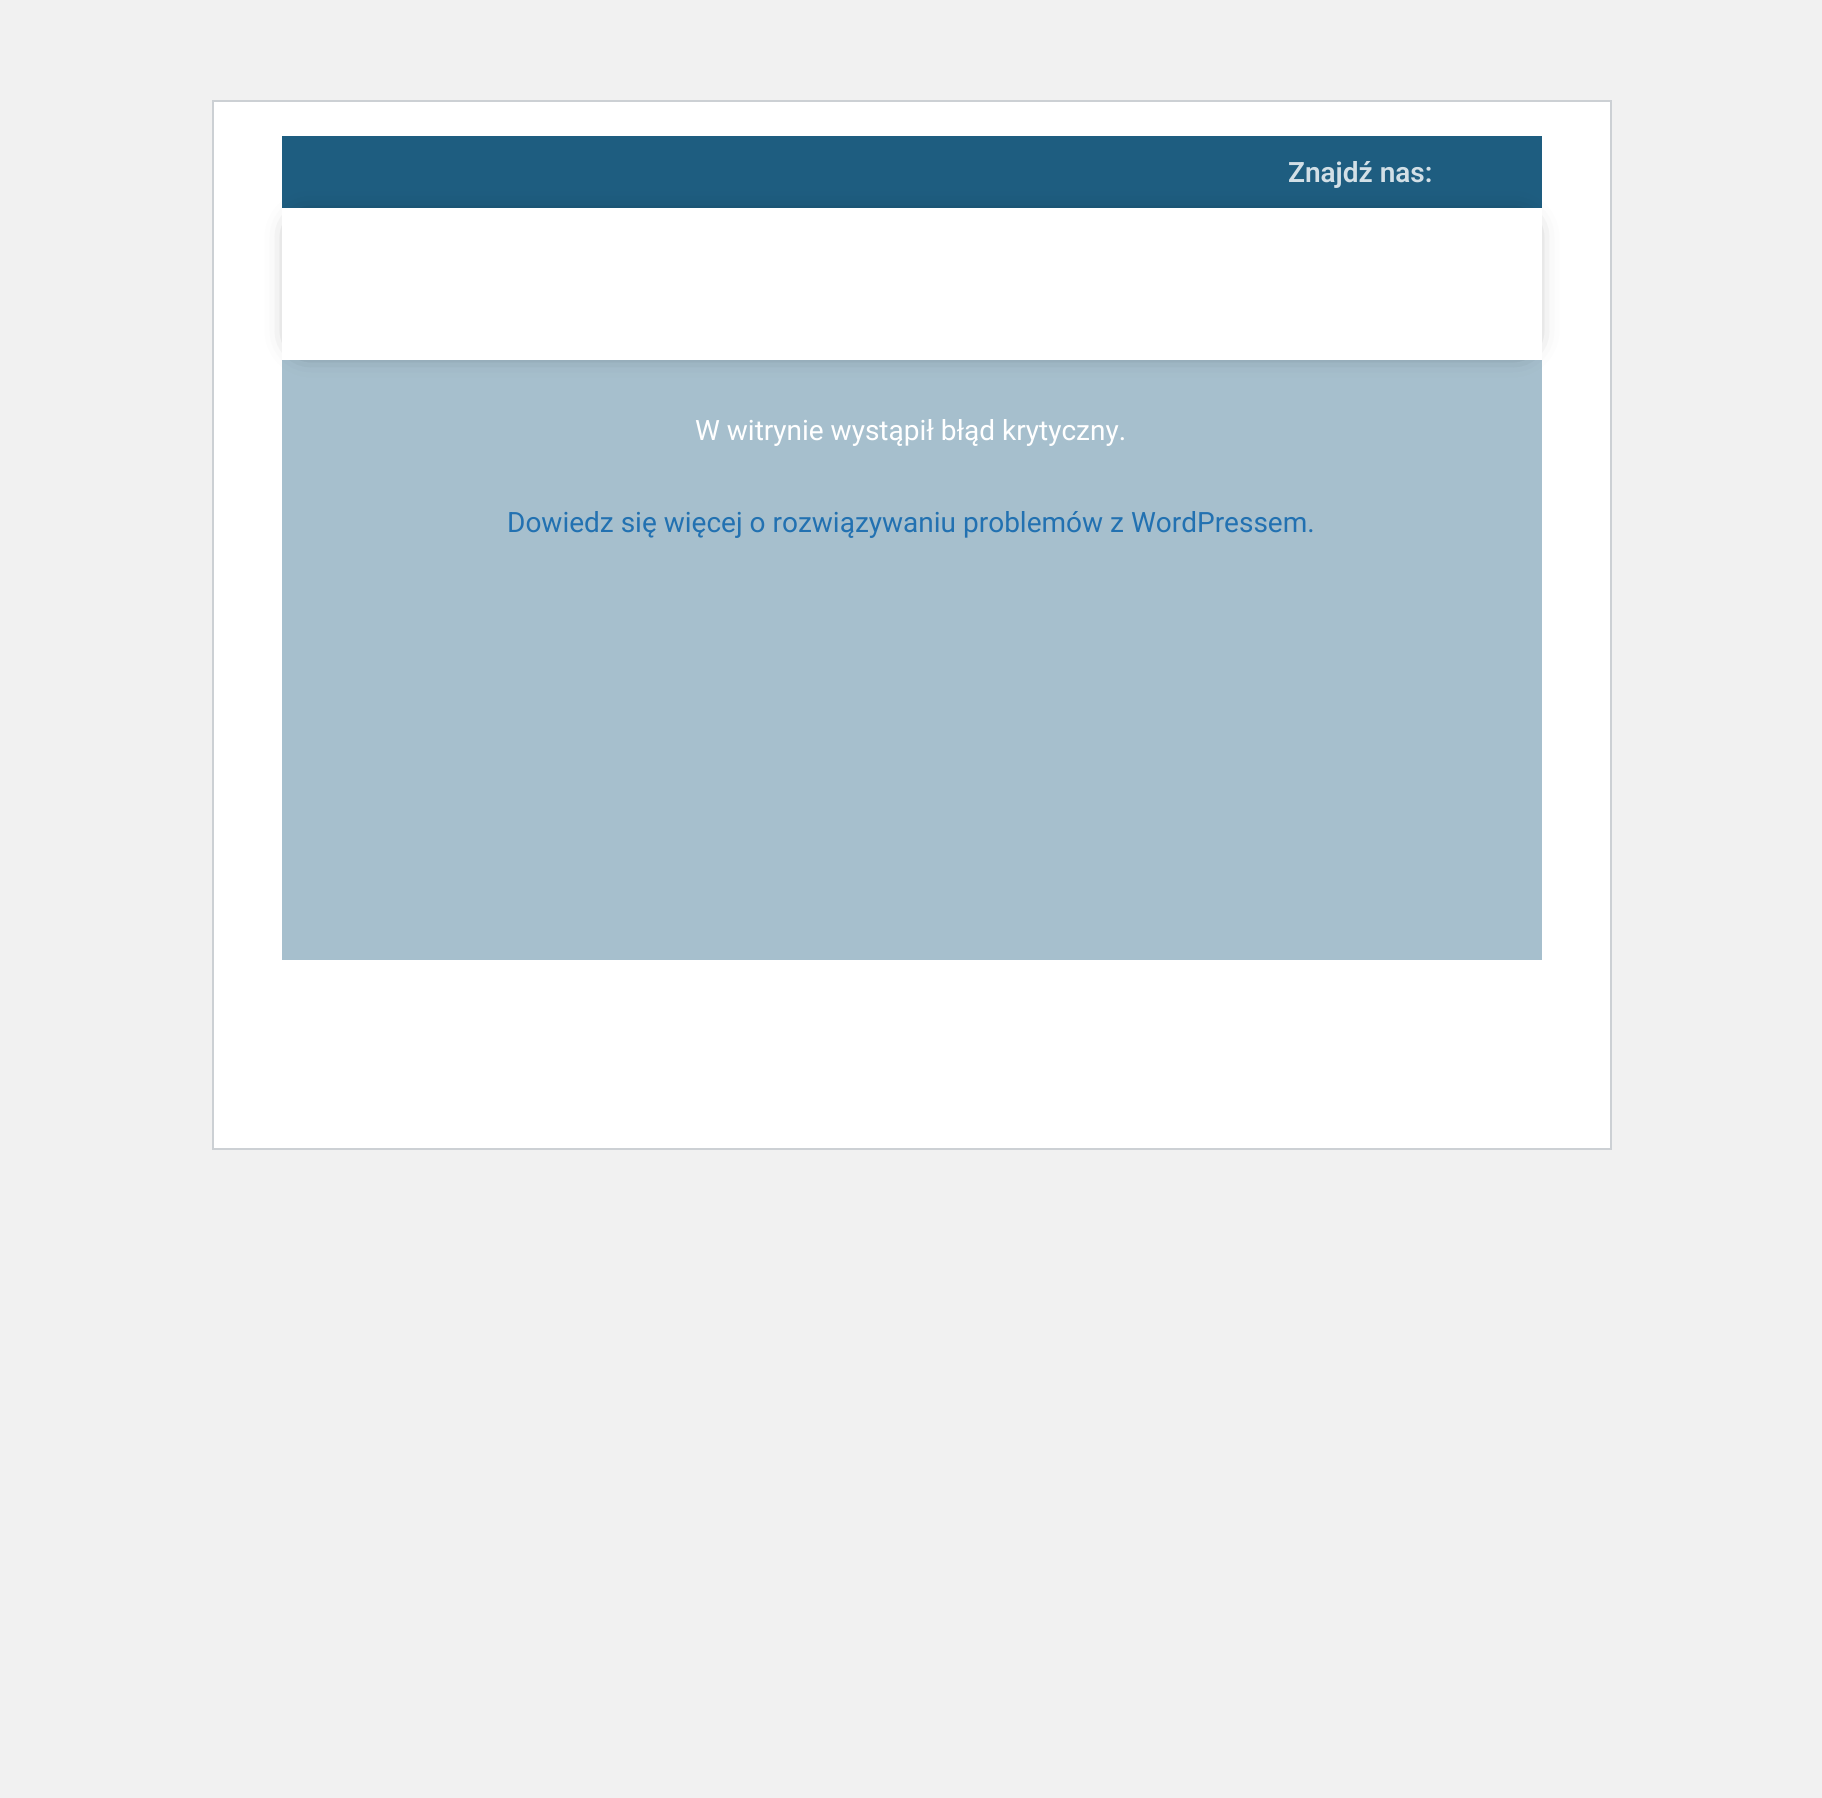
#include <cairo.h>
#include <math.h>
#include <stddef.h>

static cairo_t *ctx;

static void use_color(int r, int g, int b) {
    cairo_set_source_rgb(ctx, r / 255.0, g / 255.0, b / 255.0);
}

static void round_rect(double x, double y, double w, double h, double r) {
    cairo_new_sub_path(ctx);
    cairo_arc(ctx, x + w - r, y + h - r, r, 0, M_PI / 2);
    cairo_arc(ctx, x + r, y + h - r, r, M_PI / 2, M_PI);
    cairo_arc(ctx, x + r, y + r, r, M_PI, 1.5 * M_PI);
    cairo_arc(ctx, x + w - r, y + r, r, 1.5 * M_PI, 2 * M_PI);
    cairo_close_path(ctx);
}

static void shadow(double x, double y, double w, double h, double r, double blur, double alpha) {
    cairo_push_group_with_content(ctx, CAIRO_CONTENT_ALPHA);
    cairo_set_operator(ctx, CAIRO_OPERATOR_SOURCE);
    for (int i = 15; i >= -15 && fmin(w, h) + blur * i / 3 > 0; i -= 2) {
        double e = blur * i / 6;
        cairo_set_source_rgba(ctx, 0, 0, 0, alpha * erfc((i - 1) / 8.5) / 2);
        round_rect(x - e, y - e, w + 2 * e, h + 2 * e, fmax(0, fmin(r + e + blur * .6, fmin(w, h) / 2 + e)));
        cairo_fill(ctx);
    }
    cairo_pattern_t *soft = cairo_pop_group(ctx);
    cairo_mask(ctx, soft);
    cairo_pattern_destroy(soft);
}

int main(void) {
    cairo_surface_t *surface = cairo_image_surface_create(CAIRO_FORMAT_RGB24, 1822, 1798);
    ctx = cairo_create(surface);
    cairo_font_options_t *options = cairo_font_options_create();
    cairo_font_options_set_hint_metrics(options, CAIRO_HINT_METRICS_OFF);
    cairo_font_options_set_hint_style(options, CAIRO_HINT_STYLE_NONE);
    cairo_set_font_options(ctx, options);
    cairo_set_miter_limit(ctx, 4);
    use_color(241, 241, 241);
    cairo_paint(ctx);
    use_color(255, 255, 255);
    cairo_rectangle(ctx, 213, 101, 1398, 1048);
    cairo_fill_preserve(ctx);
    use_color(204, 208, 212);
    cairo_stroke(ctx);
    use_color(30, 93, 128);
    cairo_rectangle(ctx, 282, 136, 1260, 72);
    cairo_fill(ctx);
    cairo_select_font_face(ctx, "Roboto SemiBold", CAIRO_FONT_SLANT_NORMAL, CAIRO_FONT_WEIGHT_NORMAL);
    cairo_set_font_size(ctx, 28);
    use_color(210, 223, 230);
    cairo_move_to(ctx, 1288, 182);
    cairo_show_text(ctx, "Znajdź nas:");
    use_color(166, 191, 205);
    cairo_rectangle(ctx, 282, 360, 1260, 600);
    cairo_fill(ctx);
    cairo_save(ctx);
    cairo_set_fill_rule(ctx, CAIRO_FILL_RULE_EVEN_ODD);
    cairo_new_path(ctx);
    cairo_move_to(ctx, 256, 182);
    cairo_line_to(ctx, 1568, 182);
    cairo_line_to(ctx, 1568, 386);
    cairo_line_to(ctx, 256, 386);
    cairo_close_path(ctx);
    cairo_move_to(ctx, 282, 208);
    cairo_line_to(ctx, 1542, 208);
    cairo_line_to(ctx, 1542, 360);
    cairo_line_to(ctx, 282, 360);
    cairo_close_path(ctx);
    cairo_clip(ctx);
    use_color(0, 0, 0);
    shadow(302, 228, 1220, 112, 0, 15, 1);
    cairo_restore(ctx);
    cairo_select_font_face(ctx, "Roboto", CAIRO_FONT_SLANT_NORMAL, CAIRO_FONT_WEIGHT_NORMAL);
    use_color(255, 255, 255);
    cairo_move_to(ctx, 695, 440);
    cairo_show_text(ctx, "W witrynie wystąpił błąd krytyczny.");
    use_color(34, 113, 177);
    cairo_move_to(ctx, 507, 532);
    cairo_show_text(ctx, "Dowiedz się więcej o rozwiązywaniu problemów z WordPressem.");
    cairo_surface_write_to_png(surface, "result.png");
    cairo_font_options_destroy(options);
    cairo_destroy(ctx);
    cairo_surface_destroy(surface);
    return 0;
}
